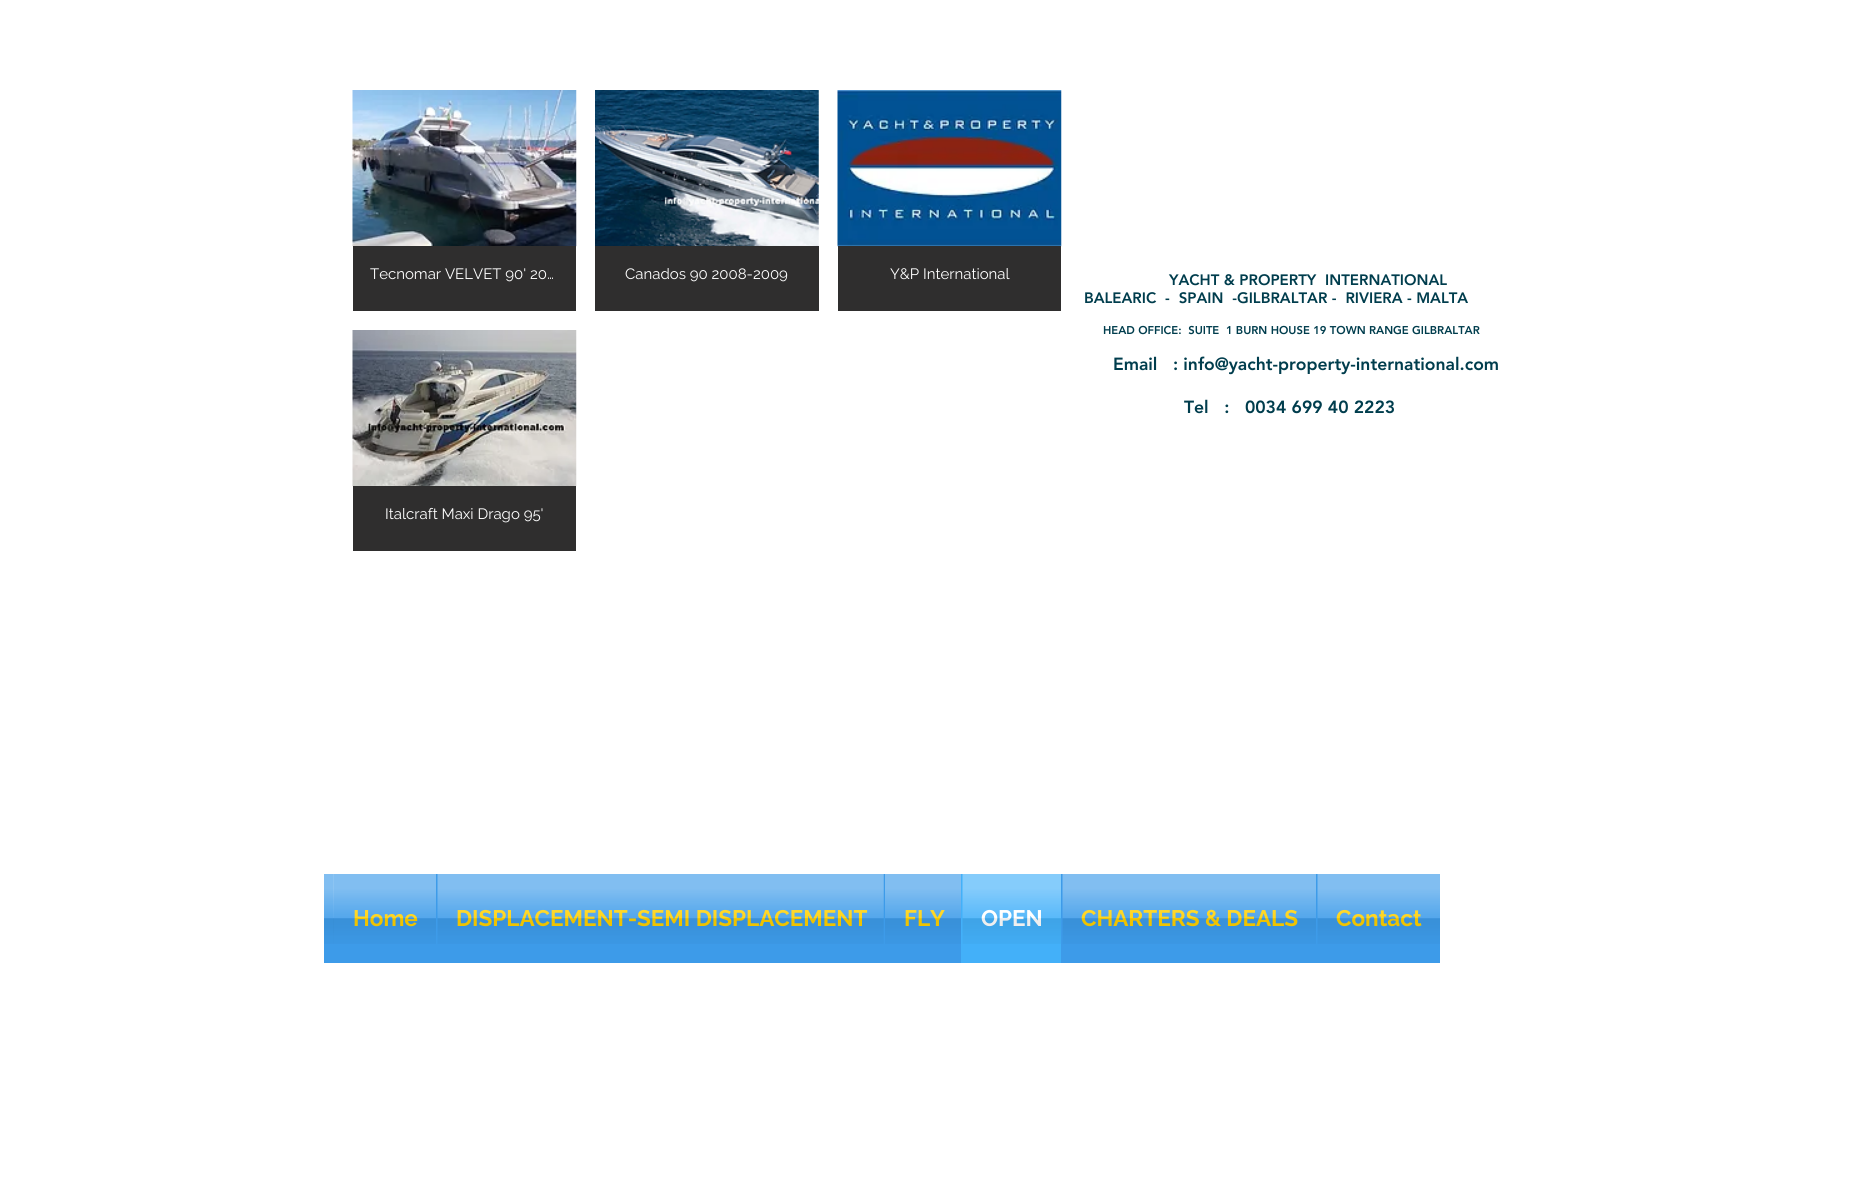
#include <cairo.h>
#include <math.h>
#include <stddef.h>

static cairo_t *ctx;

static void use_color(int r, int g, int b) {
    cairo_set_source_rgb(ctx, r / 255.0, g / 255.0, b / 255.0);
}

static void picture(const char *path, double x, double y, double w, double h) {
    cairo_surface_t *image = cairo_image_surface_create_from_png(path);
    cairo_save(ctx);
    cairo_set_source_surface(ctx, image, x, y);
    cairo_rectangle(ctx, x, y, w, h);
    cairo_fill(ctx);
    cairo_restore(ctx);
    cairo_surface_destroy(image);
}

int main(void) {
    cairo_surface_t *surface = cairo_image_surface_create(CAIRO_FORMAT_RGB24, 1860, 1195);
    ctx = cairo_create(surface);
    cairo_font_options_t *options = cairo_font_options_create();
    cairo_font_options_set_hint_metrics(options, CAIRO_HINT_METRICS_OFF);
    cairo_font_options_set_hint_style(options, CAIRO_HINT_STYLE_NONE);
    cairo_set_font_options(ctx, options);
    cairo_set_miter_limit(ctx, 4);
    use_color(255, 255, 255);
    cairo_paint(ctx);
    picture("img1.png", 352, 90, 225, 157);
    use_color(47, 46, 46);
    cairo_rectangle(ctx, 353, 246, 223, 65);
    cairo_fill(ctx);
    cairo_select_font_face(ctx, "Raleway", CAIRO_FONT_SLANT_NORMAL, CAIRO_FONT_WEIGHT_NORMAL);
    cairo_set_font_size(ctx, 15);
    use_color(255, 255, 255);
    cairo_move_to(ctx, 370, 279);
    cairo_show_text(ctx, "Tecnomar VELVET 90' 20…");
    picture("img2.png", 595, 90, 224, 156);
    use_color(47, 46, 46);
    cairo_rectangle(ctx, 595, 246, 224, 65);
    cairo_fill(ctx);
    use_color(255, 255, 255);
    cairo_move_to(ctx, 625, 279);
    cairo_show_text(ctx, "Canados 90 2008-2009");
    picture("img3.png", 837, 90, 225, 157);
    use_color(47, 46, 46);
    cairo_rectangle(ctx, 838, 246, 223, 65);
    cairo_fill(ctx);
    use_color(255, 255, 255);
    cairo_move_to(ctx, 890, 279);
    cairo_show_text(ctx, "Y&P International");
    picture("img4.png", 352, 330, 225, 157);
    use_color(47, 46, 46);
    cairo_rectangle(ctx, 353, 486, 223, 65);
    cairo_fill(ctx);
    use_color(255, 255, 255);
    cairo_move_to(ctx, 385, 519);
    cairo_show_text(ctx, "Italcraft Maxi Drago 95'");
    cairo_select_font_face(ctx, "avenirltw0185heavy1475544 Black", CAIRO_FONT_SLANT_NORMAL, CAIRO_FONT_WEIGHT_NORMAL);
    use_color(0, 61, 77);
    cairo_move_to(ctx, 1169, 285);
    cairo_show_text(ctx, "YACHT & PROPERTY  INTERNATIONAL");
    cairo_move_to(ctx, 1084, 303);
    cairo_show_text(ctx, "BALEARIC  -  SPAIN  -GILBRALTAR -  RIVIERA - MALTA");
    cairo_set_font_size(ctx, 11.25);
    cairo_move_to(ctx, 1103, 334);
    cairo_show_text(ctx, "HEAD OFFICE:  SUITE  1 BURN HOUSE 19 TOWN RANGE GILBRALTAR");
    cairo_set_font_size(ctx, 17.5);
    cairo_move_to(ctx, 1113, 370);
    cairo_show_text(ctx, "Email   : info@yacht-property-international.com");
    cairo_move_to(ctx, 1184, 413);
    cairo_show_text(ctx, "Tel   :   0034 699 40 2223");
    use_color(61, 155, 233);
    cairo_rectangle(ctx, 324, 874, 637, 89);
    cairo_fill(ctx);
    picture("img5.png", 324, 874, 10, 70);
    cairo_select_font_face(ctx, "Raleway", CAIRO_FONT_SLANT_NORMAL, CAIRO_FONT_WEIGHT_BOLD);
    cairo_set_font_size(ctx, 22.5);
    use_color(255, 208, 0);
    cairo_move_to(ctx, 353, 926);
    cairo_show_text(ctx, "Home");
    picture("img6.png", 333, 874, 103, 70);
    cairo_move_to(ctx, 456, 926);
    cairo_show_text(ctx, "DISPLACEMENT-SEMI DISPLACEMENT");
    picture("img7.png", 437, 874, 447, 70);
    cairo_move_to(ctx, 904, 926);
    cairo_show_text(ctx, "FLY");
    picture("img8.png", 885, 874, 76, 70);
    use_color(67, 176, 249);
    cairo_rectangle(ctx, 961, 874, 100, 89);
    cairo_fill(ctx);
    use_color(255, 255, 255);
    cairo_move_to(ctx, 981, 926);
    cairo_show_text(ctx, "OPEN");
    picture("img9.png", 962, 874, 99, 70);
    use_color(61, 155, 233);
    cairo_rectangle(ctx, 1061, 874, 379, 89);
    cairo_fill(ctx);
    use_color(255, 208, 0);
    cairo_move_to(ctx, 1081, 926);
    cairo_show_text(ctx, "CHARTERS & DEALS");
    picture("img10.png", 1062, 874, 254, 70);
    cairo_move_to(ctx, 1336, 926);
    cairo_show_text(ctx, "Contact");
    picture("img11.png", 1317, 874, 123, 70);
    cairo_surface_write_to_png(surface, "result.png");
    cairo_font_options_destroy(options);
    cairo_destroy(ctx);
    cairo_surface_destroy(surface);
    return 0;
}
